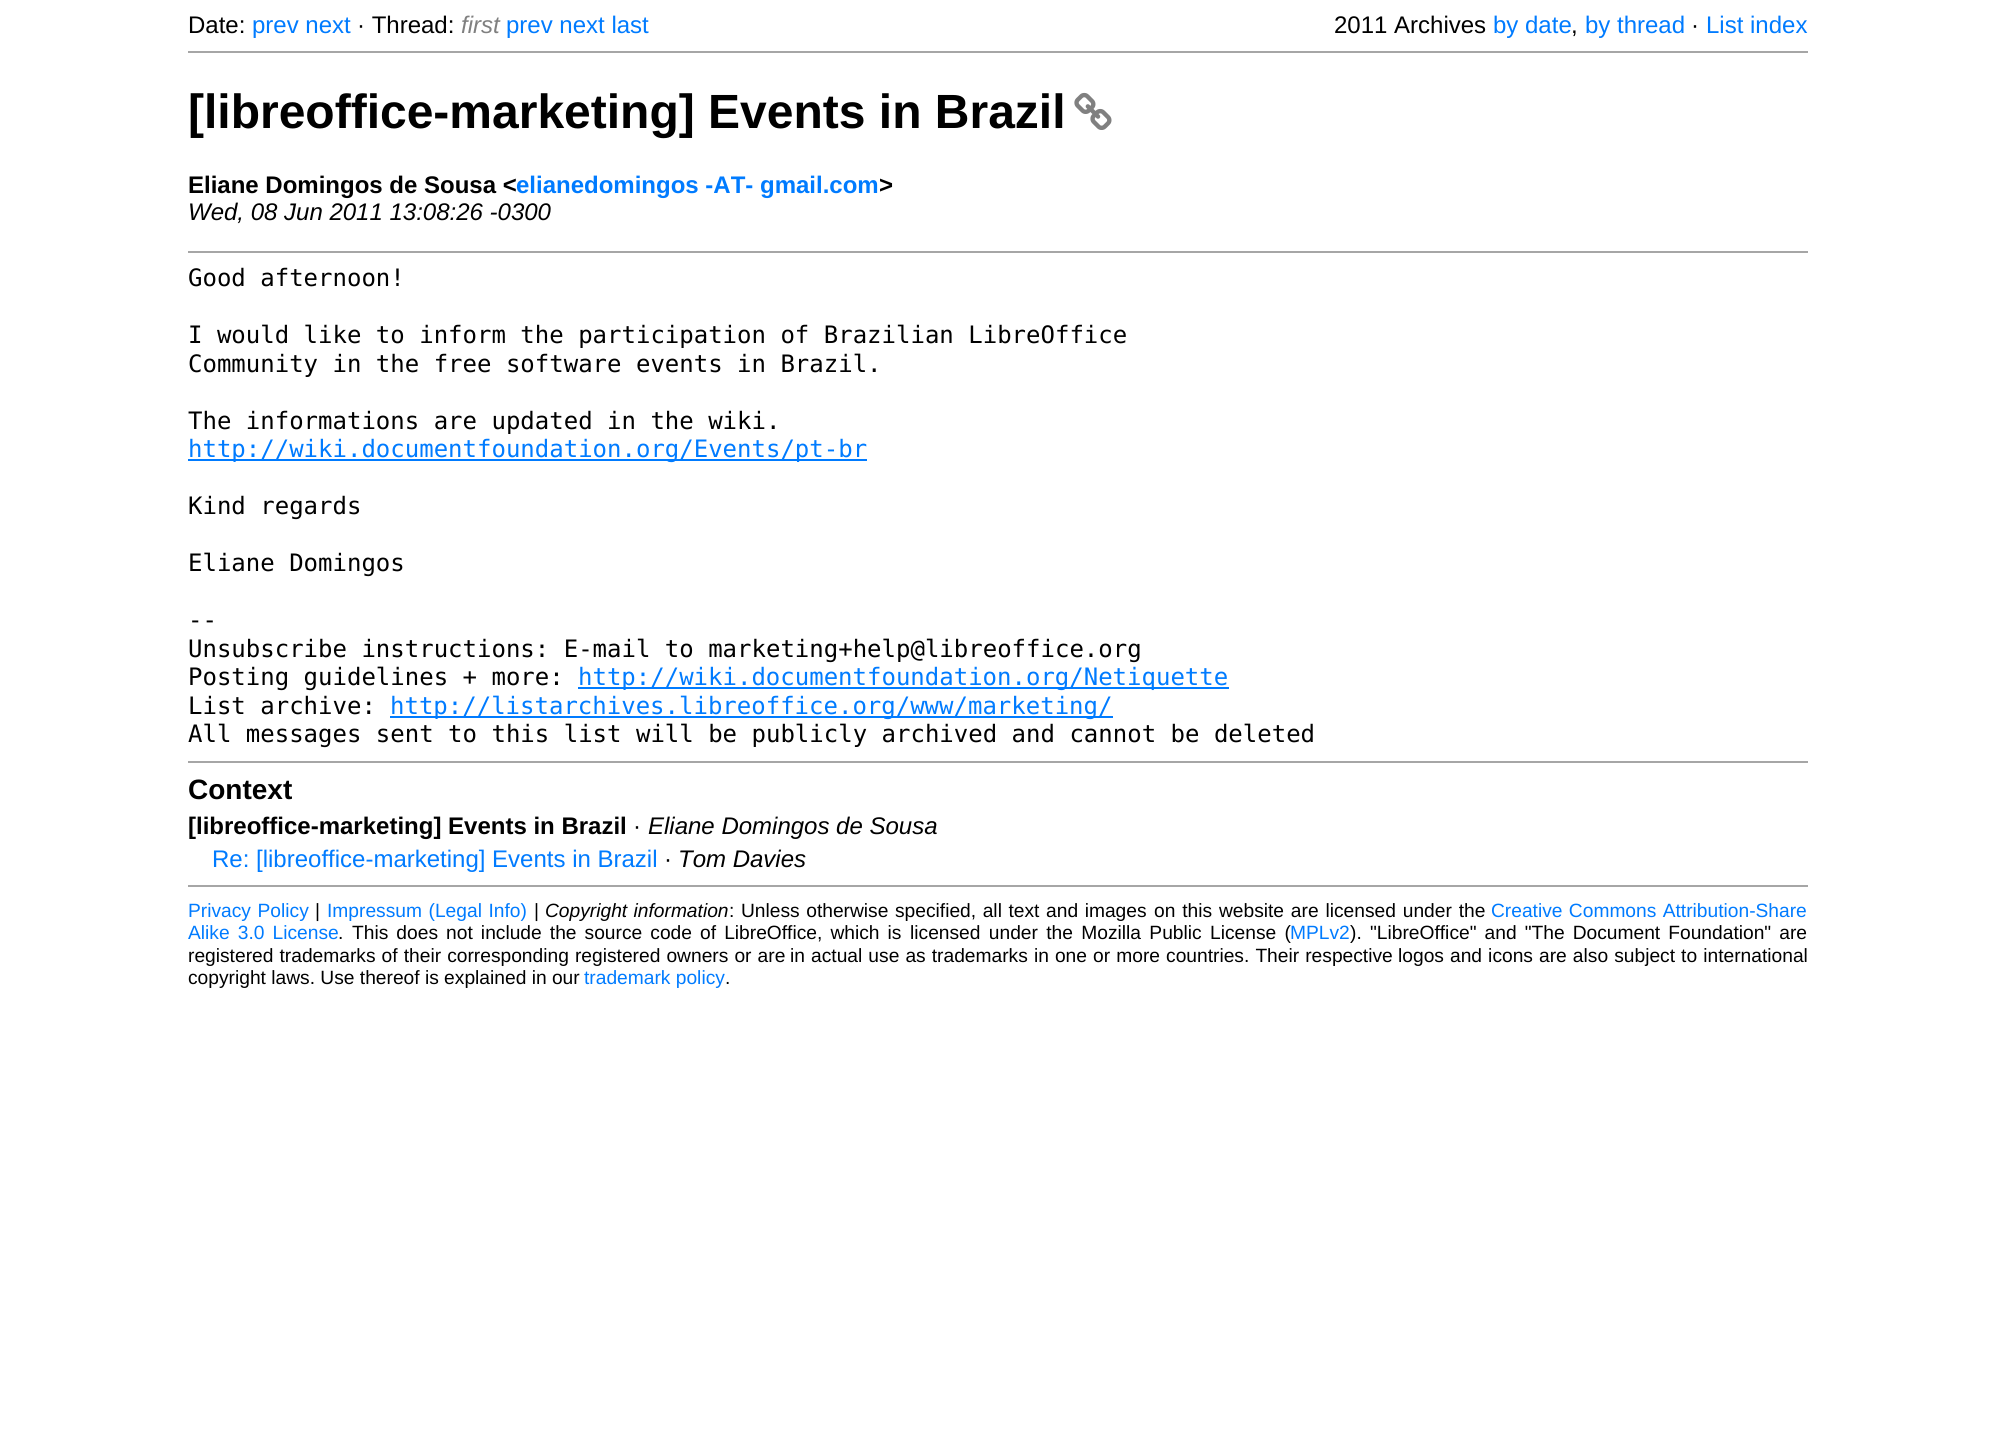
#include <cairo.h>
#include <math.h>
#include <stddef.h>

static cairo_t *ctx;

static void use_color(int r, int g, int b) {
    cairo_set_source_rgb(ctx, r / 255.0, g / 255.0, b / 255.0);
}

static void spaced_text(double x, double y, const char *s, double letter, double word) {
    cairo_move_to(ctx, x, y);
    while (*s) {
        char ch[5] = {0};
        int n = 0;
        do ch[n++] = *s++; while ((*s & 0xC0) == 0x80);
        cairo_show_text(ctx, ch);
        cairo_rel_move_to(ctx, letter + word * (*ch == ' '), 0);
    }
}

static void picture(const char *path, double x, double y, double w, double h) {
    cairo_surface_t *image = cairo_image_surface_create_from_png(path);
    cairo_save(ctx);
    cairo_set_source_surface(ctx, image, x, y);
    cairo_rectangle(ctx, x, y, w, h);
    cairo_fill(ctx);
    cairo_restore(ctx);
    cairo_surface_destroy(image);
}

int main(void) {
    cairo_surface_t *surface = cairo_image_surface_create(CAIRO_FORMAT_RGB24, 1995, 1430);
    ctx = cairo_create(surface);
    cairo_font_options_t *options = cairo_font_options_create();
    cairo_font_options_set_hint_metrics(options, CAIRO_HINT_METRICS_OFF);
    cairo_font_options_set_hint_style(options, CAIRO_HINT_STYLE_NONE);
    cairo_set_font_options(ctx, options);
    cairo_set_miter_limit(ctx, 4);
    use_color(255, 255, 255);
    cairo_paint(ctx);
    cairo_select_font_face(ctx, "Liberation Sans", CAIRO_FONT_SLANT_NORMAL, CAIRO_FONT_WEIGHT_NORMAL);
    cairo_set_font_size(ctx, 24);
    use_color(0, 0, 0);
    cairo_move_to(ctx, 188, 33);
    cairo_show_text(ctx, "Date:");
    use_color(0, 123, 255);
    cairo_move_to(ctx, 252, 33);
    cairo_show_text(ctx, "prev next");
    use_color(0, 0, 0);
    cairo_move_to(ctx, 357, 33);
    cairo_show_text(ctx, "· Thread:");
    cairo_select_font_face(ctx, "Liberation Sans", CAIRO_FONT_SLANT_ITALIC, CAIRO_FONT_WEIGHT_NORMAL);
    use_color(128, 128, 128);
    cairo_move_to(ctx, 461, 33);
    cairo_show_text(ctx, "first");
    cairo_select_font_face(ctx, "Liberation Sans", CAIRO_FONT_SLANT_NORMAL, CAIRO_FONT_WEIGHT_NORMAL);
    use_color(0, 123, 255);
    cairo_move_to(ctx, 506, 33);
    cairo_show_text(ctx, "prev next last");
    use_color(0, 0, 0);
    cairo_move_to(ctx, 1334, 33);
    cairo_show_text(ctx, "2011 Archives");
    use_color(0, 123, 255);
    cairo_move_to(ctx, 1493, 33);
    cairo_show_text(ctx, "by date");
    cairo_move_to(ctx, 1585, 33);
    cairo_show_text(ctx, "by thread");
    use_color(0, 0, 0);
    cairo_move_to(ctx, 1691, 33);
    cairo_show_text(ctx, "·");
    use_color(0, 123, 255);
    cairo_move_to(ctx, 1706, 33);
    cairo_show_text(ctx, "List index");
    use_color(0, 0, 0);
    cairo_move_to(ctx, 1571, 33);
    cairo_show_text(ctx, ",");
    use_color(166, 166, 166);
    cairo_rectangle(ctx, 188, 51, 1620, 2);
    cairo_fill(ctx);
    cairo_select_font_face(ctx, "Liberation Sans", CAIRO_FONT_SLANT_NORMAL, CAIRO_FONT_WEIGHT_BOLD);
    cairo_set_font_size(ctx, 48);
    use_color(0, 0, 0);
    cairo_move_to(ctx, 188, 128);
    cairo_show_text(ctx, "[libreoffice-marketing] Events in Brazil");
    picture("img1.png", 1074, 92, 38, 38);
    cairo_set_font_size(ctx, 24);
    cairo_move_to(ctx, 188, 193);
    cairo_show_text(ctx, "Eliane Domingos de Sousa <");
    use_color(0, 123, 255);
    cairo_move_to(ctx, 516, 193);
    cairo_show_text(ctx, "elianedomingos -AT- gmail.com");
    use_color(0, 0, 0);
    cairo_move_to(ctx, 879, 193);
    cairo_show_text(ctx, ">");
    cairo_select_font_face(ctx, "Liberation Sans", CAIRO_FONT_SLANT_ITALIC, CAIRO_FONT_WEIGHT_NORMAL);
    cairo_move_to(ctx, 188, 220);
    cairo_show_text(ctx, "Wed, 08 Jun 2011 13:08:26 -0300");
    use_color(166, 166, 166);
    cairo_rectangle(ctx, 188, 251, 1620, 2);
    cairo_fill(ctx);
    cairo_select_font_face(ctx, "DejaVu Sans Mono", CAIRO_FONT_SLANT_NORMAL, CAIRO_FONT_WEIGHT_NORMAL);
    use_color(0, 0, 0);
    cairo_move_to(ctx, 188, 286);
    cairo_show_text(ctx, "Good afternoon!");
    cairo_move_to(ctx, 188, 343);
    cairo_show_text(ctx, "I would like to inform the participation of Brazilian LibreOffice");
    cairo_move_to(ctx, 188, 372);
    cairo_show_text(ctx, "Community in the free software events in Brazil.");
    cairo_move_to(ctx, 188, 429);
    cairo_show_text(ctx, "The informations are updated in the wiki.");
    use_color(0, 123, 255);
    cairo_rectangle(ctx, 188, 459, 679, 2);
    cairo_fill(ctx);
    cairo_move_to(ctx, 188, 457);
    cairo_show_text(ctx, "http://wiki.documentfoundation.org/Events/pt-br");
    use_color(0, 0, 0);
    cairo_move_to(ctx, 188, 514);
    cairo_show_text(ctx, "Kind regards");
    cairo_move_to(ctx, 188, 571);
    cairo_show_text(ctx, "Eliane Domingos");
    cairo_move_to(ctx, 188, 628);
    cairo_show_text(ctx, "--");
    cairo_move_to(ctx, 188, 657);
    cairo_show_text(ctx, "Unsubscribe instructions: E-mail to marketing+help@libreoffice.org");
    cairo_move_to(ctx, 188, 685);
    cairo_show_text(ctx, "Posting guidelines + more:");
    use_color(0, 123, 255);
    cairo_rectangle(ctx, 578, 687, 651, 2);
    cairo_fill(ctx);
    cairo_move_to(ctx, 578, 685);
    cairo_show_text(ctx, "http://wiki.documentfoundation.org/Netiquette");
    use_color(0, 0, 0);
    cairo_move_to(ctx, 188, 714);
    cairo_show_text(ctx, "List archive:");
    use_color(0, 123, 255);
    cairo_rectangle(ctx, 390, 716, 723, 2);
    cairo_fill(ctx);
    cairo_move_to(ctx, 390, 714);
    cairo_show_text(ctx, "http://listarchives.libreoffice.org/www/marketing/");
    use_color(0, 0, 0);
    cairo_move_to(ctx, 188, 742);
    cairo_show_text(ctx, "All messages sent to this list will be publicly archived and cannot be deleted");
    use_color(166, 166, 166);
    cairo_rectangle(ctx, 188, 761, 1620, 2);
    cairo_fill(ctx);
    cairo_select_font_face(ctx, "Liberation Sans", CAIRO_FONT_SLANT_NORMAL, CAIRO_FONT_WEIGHT_BOLD);
    cairo_set_font_size(ctx, 28);
    use_color(0, 0, 0);
    cairo_move_to(ctx, 188, 799);
    cairo_show_text(ctx, "Context");
    cairo_set_font_size(ctx, 24);
    cairo_move_to(ctx, 188, 834);
    cairo_show_text(ctx, "[libreoffice-marketing] Events in Brazil");
    cairo_select_font_face(ctx, "Liberation Sans", CAIRO_FONT_SLANT_NORMAL, CAIRO_FONT_WEIGHT_NORMAL);
    cairo_move_to(ctx, 633, 834);
    cairo_show_text(ctx, "·");
    cairo_select_font_face(ctx, "Liberation Sans", CAIRO_FONT_SLANT_ITALIC, CAIRO_FONT_WEIGHT_NORMAL);
    cairo_move_to(ctx, 648, 834);
    cairo_show_text(ctx, "Eliane Domingos de Sousa");
    cairo_select_font_face(ctx, "Liberation Sans", CAIRO_FONT_SLANT_NORMAL, CAIRO_FONT_WEIGHT_NORMAL);
    use_color(0, 123, 255);
    cairo_move_to(ctx, 212, 867);
    cairo_show_text(ctx, "Re: [libreoffice-marketing] Events in Brazil");
    use_color(0, 0, 0);
    cairo_move_to(ctx, 664, 867);
    cairo_show_text(ctx, "·");
    cairo_select_font_face(ctx, "Liberation Sans", CAIRO_FONT_SLANT_ITALIC, CAIRO_FONT_WEIGHT_NORMAL);
    cairo_move_to(ctx, 678, 867);
    cairo_show_text(ctx, "Tom Davies");
    use_color(166, 166, 166);
    cairo_rectangle(ctx, 188, 885, 1620, 2);
    cairo_fill(ctx);
    cairo_select_font_face(ctx, "Liberation Sans", CAIRO_FONT_SLANT_NORMAL, CAIRO_FONT_WEIGHT_NORMAL);
    cairo_set_font_size(ctx, 19.2);
    use_color(0, 123, 255);
    spaced_text(188, 917, "Privacy Policy", 0, 1.25);
    use_color(0, 0, 0);
    cairo_move_to(ctx, 315, 917);
    cairo_show_text(ctx, "|");
    use_color(0, 123, 255);
    spaced_text(327, 917, "Impressum (Legal Info)", 0, 1.25);
    use_color(0, 0, 0);
    cairo_move_to(ctx, 534, 917);
    cairo_show_text(ctx, "|");
    cairo_select_font_face(ctx, "Liberation Sans", CAIRO_FONT_SLANT_ITALIC, CAIRO_FONT_WEIGHT_NORMAL);
    spaced_text(545, 917, "Copyright information", 0, 1);
    cairo_select_font_face(ctx, "Liberation Sans", CAIRO_FONT_SLANT_NORMAL, CAIRO_FONT_WEIGHT_NORMAL);
    spaced_text(729, 917, ": Unless otherwise specified, all text and images", 0, 1.25);
    spaced_text(1154, 917, "on this website are licensed under the", 0, 1.5);
    use_color(0, 123, 255);
    spaced_text(1491, 917, "Creative Commons Attribution-Share", 0, 1);
    spaced_text(188, 939, "Alike 3.0 License", 0, 2.75);
    use_color(0, 0, 0);
    cairo_move_to(ctx, 338, 939);
    cairo_show_text(ctx, ".");
    spaced_text(352, 939, "This does not include the source code of LibreOffice, which is", 0, 2.75);
    spaced_text(910, 939, "licensed under the Mozilla Public License (", 0, 3);
    use_color(0, 123, 255);
    cairo_move_to(ctx, 1290, 939);
    cairo_show_text(ctx, "MPLv2");
    use_color(0, 0, 0);
    cairo_move_to(ctx, 1350, 939);
    cairo_show_text(ctx, ").");
    spaced_text(1370, 939, "\"LibreOffice\" and \"The Document Foundation\" are", 0, 2.75);
    spaced_text(188, 962, "registered trademarks of their corresponding registered owners or are", 0, 0.75);
    spaced_text(790, 962, "in actual use as trademarks in one or more countries. Their respective", 0, 0.75);
    spaced_text(1398, 962, "logos and icons are also subject to international", 0, 0.75);
    cairo_move_to(ctx, 188, 984);
    cairo_show_text(ctx, "copyright laws. Use thereof is explained in our");
    use_color(0, 123, 255);
    cairo_move_to(ctx, 584, 984);
    cairo_show_text(ctx, "trademark policy");
    use_color(0, 0, 0);
    cairo_move_to(ctx, 725, 984);
    cairo_show_text(ctx, ".");
    cairo_surface_write_to_png(surface, "result.png");
    cairo_font_options_destroy(options);
    cairo_destroy(ctx);
    cairo_surface_destroy(surface);
    return 0;
}
